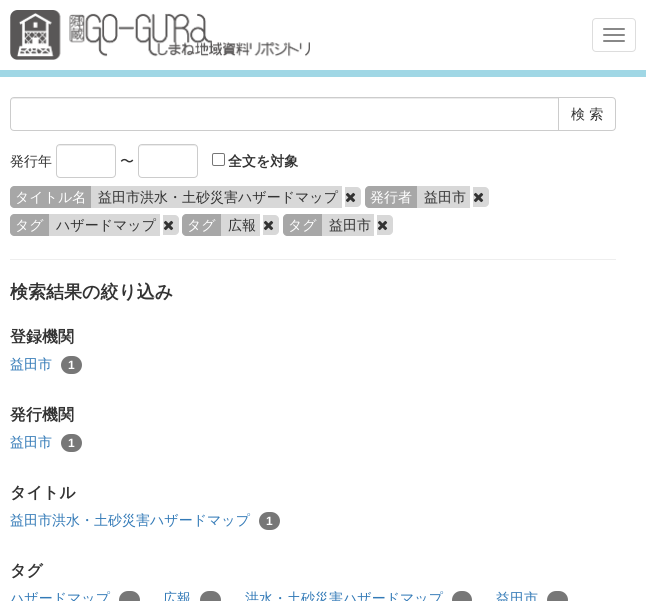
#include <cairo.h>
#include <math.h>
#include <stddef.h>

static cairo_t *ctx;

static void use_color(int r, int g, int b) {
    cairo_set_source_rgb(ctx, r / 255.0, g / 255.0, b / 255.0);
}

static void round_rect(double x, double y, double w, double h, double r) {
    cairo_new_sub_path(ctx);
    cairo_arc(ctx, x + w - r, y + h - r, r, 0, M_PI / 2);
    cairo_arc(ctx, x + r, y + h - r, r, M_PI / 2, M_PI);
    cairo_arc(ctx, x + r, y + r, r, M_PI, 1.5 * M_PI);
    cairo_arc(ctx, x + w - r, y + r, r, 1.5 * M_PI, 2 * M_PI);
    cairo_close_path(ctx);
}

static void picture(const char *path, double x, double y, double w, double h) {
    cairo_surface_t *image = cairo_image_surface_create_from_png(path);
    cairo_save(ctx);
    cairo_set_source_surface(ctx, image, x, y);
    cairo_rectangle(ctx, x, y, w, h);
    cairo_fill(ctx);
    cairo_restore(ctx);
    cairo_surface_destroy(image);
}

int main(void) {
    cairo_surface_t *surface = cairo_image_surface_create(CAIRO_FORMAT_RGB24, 646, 601);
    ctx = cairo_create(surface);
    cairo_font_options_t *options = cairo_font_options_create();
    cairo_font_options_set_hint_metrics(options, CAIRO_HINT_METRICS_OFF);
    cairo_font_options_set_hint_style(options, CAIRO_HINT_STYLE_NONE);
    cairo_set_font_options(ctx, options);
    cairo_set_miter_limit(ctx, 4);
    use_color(255, 255, 255);
    cairo_paint(ctx);
    use_color(160, 215, 229);
    cairo_rectangle(ctx, 0, 70, 646, 7);
    cairo_fill(ctx);
    picture("img1.png", 10, 10, 300, 50);
    round_rect(592.5, 18.5, 43, 33, 3.5);
    use_color(221, 221, 221);
    cairo_set_line_width(ctx, 1);
    cairo_stroke(ctx);
    use_color(136, 136, 136);
    round_rect(603, 28, 22, 2, 1);
    cairo_fill(ctx);
    round_rect(603, 34, 22, 2, 1);
    cairo_fill(ctx);
    round_rect(603, 40, 22, 2, 1);
    cairo_fill(ctx);
    use_color(236, 236, 236);
    cairo_new_path(ctx);
    cairo_move_to(ctx, 14, 99);
    cairo_line_to(ctx, 558, 99);
    cairo_line_to(ctx, 558, 98);
    cairo_line_to(ctx, 14, 98);
    cairo_curve_to(ctx, 12, 98, 11, 100, 11, 102);
    cairo_curve_to(ctx, 11, 100, 12, 99, 14, 99);
    cairo_close_path(ctx);
    cairo_fill(ctx);
    cairo_new_path(ctx);
    cairo_move_to(ctx, 14, 97.5);
    cairo_line_to(ctx, 558.5, 97.5);
    cairo_line_to(ctx, 558.5, 130.5);
    cairo_line_to(ctx, 14, 130.5);
    cairo_curve_to(ctx, 12, 130.5, 10.5, 129, 10.5, 127);
    cairo_line_to(ctx, 10.5, 101);
    cairo_curve_to(ctx, 10.5, 99, 12, 97.5, 14, 97.5);
    cairo_close_path(ctx);
    use_color(204, 204, 204);
    cairo_stroke(ctx);
    use_color(255, 255, 255);
    cairo_new_path(ctx);
    cairo_move_to(ctx, 558.5, 97.5);
    cairo_line_to(ctx, 612, 97.5);
    cairo_curve_to(ctx, 614, 97.5, 615.5, 99, 615.5, 101);
    cairo_line_to(ctx, 615.5, 127);
    cairo_curve_to(ctx, 615.5, 129, 614, 130.5, 612, 130.5);
    cairo_line_to(ctx, 558.5, 130.5);
    cairo_close_path(ctx);
    cairo_fill_preserve(ctx);
    use_color(204, 204, 204);
    cairo_stroke(ctx);
    cairo_select_font_face(ctx, "WenQuanYi Zen Hei Medium", CAIRO_FONT_SLANT_NORMAL, CAIRO_FONT_WEIGHT_NORMAL);
    cairo_set_font_size(ctx, 14);
    use_color(51, 51, 51);
    cairo_move_to(ctx, 571, 119);
    cairo_show_text(ctx, "検 索");
    cairo_move_to(ctx, 10, 166);
    cairo_show_text(ctx, "発行年");
    use_color(236, 236, 236);
    cairo_new_path(ctx);
    cairo_move_to(ctx, 60, 146);
    cairo_line_to(ctx, 112, 146);
    cairo_curve_to(ctx, 114, 146, 115, 147, 115, 149);
    cairo_curve_to(ctx, 115, 143, 108, 145, 103, 145);
    cairo_line_to(ctx, 69, 145);
    cairo_curve_to(ctx, 64, 145, 57, 143, 57, 149);
    cairo_curve_to(ctx, 57, 147, 58, 146, 60, 146);
    cairo_close_path(ctx);
    cairo_fill(ctx);
    round_rect(56.5, 144.5, 59, 33, 3.5);
    use_color(204, 204, 204);
    cairo_stroke(ctx);
    use_color(51, 51, 51);
    cairo_move_to(ctx, 120, 166);
    cairo_show_text(ctx, "〜");
    use_color(236, 236, 236);
    cairo_new_path(ctx);
    cairo_move_to(ctx, 142, 146);
    cairo_line_to(ctx, 194, 146);
    cairo_curve_to(ctx, 196, 146, 197, 147, 197, 149);
    cairo_curve_to(ctx, 197, 143, 190, 145, 185, 145);
    cairo_line_to(ctx, 151, 145);
    cairo_curve_to(ctx, 146, 145, 139, 143, 139, 149);
    cairo_curve_to(ctx, 139, 147, 140, 146, 142, 146);
    cairo_close_path(ctx);
    cairo_fill(ctx);
    round_rect(138.5, 144.5, 59, 33, 3.5);
    use_color(204, 204, 204);
    cairo_stroke(ctx);
    round_rect(212.5, 153.5, 12, 12, 1.5);
    use_color(118, 118, 118);
    cairo_stroke(ctx);
    cairo_select_font_face(ctx, "WenQuanYi Zen Hei", CAIRO_FONT_SLANT_NORMAL, CAIRO_FONT_WEIGHT_BOLD);
    use_color(51, 51, 51);
    cairo_move_to(ctx, 228, 166);
    cairo_show_text(ctx, "全文を対象");
    use_color(167, 167, 167);
    cairo_new_path(ctx);
    cairo_move_to(ctx, 14, 186);
    cairo_line_to(ctx, 91, 186);
    cairo_line_to(ctx, 91, 208);
    cairo_line_to(ctx, 14, 208);
    cairo_curve_to(ctx, 12, 208, 10, 206, 10, 204);
    cairo_line_to(ctx, 10, 190);
    cairo_curve_to(ctx, 10, 188, 12, 186, 14, 186);
    cairo_close_path(ctx);
    cairo_fill(ctx);
    cairo_select_font_face(ctx, "WenQuanYi Zen Hei Medium", CAIRO_FONT_SLANT_NORMAL, CAIRO_FONT_WEIGHT_NORMAL);
    use_color(255, 255, 255);
    cairo_move_to(ctx, 15, 202);
    cairo_show_text(ctx, "タイトル名");
    use_color(216, 216, 216);
    cairo_rectangle(ctx, 91, 186, 251, 22);
    cairo_fill(ctx);
    cairo_new_path(ctx);
    cairo_move_to(ctx, 345, 187);
    cairo_line_to(ctx, 357, 187);
    cairo_curve_to(ctx, 359, 187, 361, 189, 361, 191);
    cairo_line_to(ctx, 361, 203);
    cairo_curve_to(ctx, 361, 205, 359, 207, 357, 207);
    cairo_line_to(ctx, 345, 207);
    cairo_close_path(ctx);
    cairo_fill(ctx);
    use_color(51, 51, 51);
    cairo_move_to(ctx, 98, 202);
    cairo_show_text(ctx, "益田市洪水・土砂災害ハザードマップ");
    picture("img2.png", 345, 192, 11, 11);
    use_color(167, 167, 167);
    cairo_new_path(ctx);
    cairo_move_to(ctx, 369, 186);
    cairo_line_to(ctx, 417, 186);
    cairo_line_to(ctx, 417, 208);
    cairo_line_to(ctx, 369, 208);
    cairo_curve_to(ctx, 367, 208, 365, 206, 365, 204);
    cairo_line_to(ctx, 365, 190);
    cairo_curve_to(ctx, 365, 188, 367, 186, 369, 186);
    cairo_close_path(ctx);
    cairo_fill(ctx);
    use_color(255, 255, 255);
    cairo_move_to(ctx, 370, 202);
    cairo_show_text(ctx, "発行者");
    use_color(216, 216, 216);
    cairo_rectangle(ctx, 417, 186, 53, 22);
    cairo_fill(ctx);
    cairo_new_path(ctx);
    cairo_move_to(ctx, 473, 187);
    cairo_line_to(ctx, 485, 187);
    cairo_curve_to(ctx, 487, 187, 489, 189, 489, 191);
    cairo_line_to(ctx, 489, 203);
    cairo_curve_to(ctx, 489, 205, 487, 207, 485, 207);
    cairo_line_to(ctx, 473, 207);
    cairo_close_path(ctx);
    cairo_fill(ctx);
    use_color(51, 51, 51);
    cairo_move_to(ctx, 424, 202);
    cairo_show_text(ctx, "益田市");
    picture("img2.png", 473, 192, 11, 11);
    use_color(167, 167, 167);
    cairo_new_path(ctx);
    cairo_move_to(ctx, 14, 214);
    cairo_line_to(ctx, 49, 214);
    cairo_line_to(ctx, 49, 236);
    cairo_line_to(ctx, 14, 236);
    cairo_curve_to(ctx, 12, 236, 10, 234, 10, 232);
    cairo_line_to(ctx, 10, 218);
    cairo_curve_to(ctx, 10, 216, 12, 214, 14, 214);
    cairo_close_path(ctx);
    cairo_fill(ctx);
    use_color(255, 255, 255);
    cairo_move_to(ctx, 15, 230);
    cairo_show_text(ctx, "タグ");
    use_color(216, 216, 216);
    cairo_rectangle(ctx, 49, 214, 111, 22);
    cairo_fill(ctx);
    cairo_new_path(ctx);
    cairo_move_to(ctx, 163, 215);
    cairo_line_to(ctx, 175, 215);
    cairo_curve_to(ctx, 177, 215, 179, 217, 179, 219);
    cairo_line_to(ctx, 179, 231);
    cairo_curve_to(ctx, 179, 233, 177, 235, 175, 235);
    cairo_line_to(ctx, 163, 235);
    cairo_close_path(ctx);
    cairo_fill(ctx);
    use_color(51, 51, 51);
    cairo_move_to(ctx, 56, 230);
    cairo_show_text(ctx, "ハザードマップ");
    picture("img2.png", 163, 220, 11, 11);
    use_color(167, 167, 167);
    cairo_new_path(ctx);
    cairo_move_to(ctx, 186, 214);
    cairo_line_to(ctx, 221, 214);
    cairo_line_to(ctx, 221, 236);
    cairo_line_to(ctx, 186, 236);
    cairo_curve_to(ctx, 184, 236, 182, 234, 182, 232);
    cairo_line_to(ctx, 182, 218);
    cairo_curve_to(ctx, 182, 216, 184, 214, 186, 214);
    cairo_close_path(ctx);
    cairo_fill(ctx);
    use_color(255, 255, 255);
    cairo_move_to(ctx, 187, 230);
    cairo_show_text(ctx, "タグ");
    use_color(216, 216, 216);
    cairo_rectangle(ctx, 221, 214, 39, 22);
    cairo_fill(ctx);
    cairo_new_path(ctx);
    cairo_move_to(ctx, 263, 215);
    cairo_line_to(ctx, 275, 215);
    cairo_curve_to(ctx, 277, 215, 279, 217, 279, 219);
    cairo_line_to(ctx, 279, 231);
    cairo_curve_to(ctx, 279, 233, 277, 235, 275, 235);
    cairo_line_to(ctx, 263, 235);
    cairo_close_path(ctx);
    cairo_fill(ctx);
    use_color(51, 51, 51);
    cairo_move_to(ctx, 228, 230);
    cairo_show_text(ctx, "広報");
    picture("img2.png", 263, 220, 11, 11);
    use_color(167, 167, 167);
    cairo_new_path(ctx);
    cairo_move_to(ctx, 287, 214);
    cairo_line_to(ctx, 322, 214);
    cairo_line_to(ctx, 322, 236);
    cairo_line_to(ctx, 287, 236);
    cairo_curve_to(ctx, 285, 236, 283, 234, 283, 232);
    cairo_line_to(ctx, 283, 218);
    cairo_curve_to(ctx, 283, 216, 285, 214, 287, 214);
    cairo_close_path(ctx);
    cairo_fill(ctx);
    use_color(255, 255, 255);
    cairo_move_to(ctx, 288, 230);
    cairo_show_text(ctx, "タグ");
    use_color(216, 216, 216);
    cairo_rectangle(ctx, 322, 214, 52, 22);
    cairo_fill(ctx);
    cairo_new_path(ctx);
    cairo_move_to(ctx, 377, 215);
    cairo_line_to(ctx, 389, 215);
    cairo_curve_to(ctx, 391, 215, 393, 217, 393, 219);
    cairo_line_to(ctx, 393, 231);
    cairo_curve_to(ctx, 393, 233, 391, 235, 389, 235);
    cairo_line_to(ctx, 377, 235);
    cairo_close_path(ctx);
    cairo_fill(ctx);
    use_color(51, 51, 51);
    cairo_move_to(ctx, 329, 230);
    cairo_show_text(ctx, "益田市");
    picture("img2.png", 377, 220, 11, 11);
    use_color(238, 238, 238);
    cairo_rectangle(ctx, 10, 259, 606, 1);
    cairo_fill(ctx);
    cairo_select_font_face(ctx, "WenQuanYi Zen Hei", CAIRO_FONT_SLANT_NORMAL, CAIRO_FONT_WEIGHT_BOLD);
    cairo_set_font_size(ctx, 18);
    use_color(51, 51, 51);
    cairo_move_to(ctx, 10, 298);
    cairo_show_text(ctx, "検索結果の絞り込み");
    cairo_set_font_size(ctx, 16);
    cairo_move_to(ctx, 10, 342);
    cairo_show_text(ctx, "登録機関");
    cairo_select_font_face(ctx, "WenQuanYi Zen Hei Medium", CAIRO_FONT_SLANT_NORMAL, CAIRO_FONT_WEIGHT_NORMAL);
    cairo_set_font_size(ctx, 14);
    use_color(51, 122, 183);
    cairo_move_to(ctx, 10, 369);
    cairo_show_text(ctx, "益田市");
    use_color(119, 119, 119);
    round_rect(61, 356, 21, 18, 9);
    cairo_fill(ctx);
    cairo_select_font_face(ctx, "Liberation Sans", CAIRO_FONT_SLANT_NORMAL, CAIRO_FONT_WEIGHT_BOLD);
    cairo_set_font_size(ctx, 12);
    use_color(255, 255, 255);
    cairo_move_to(ctx, 68, 369);
    cairo_show_text(ctx, "1");
    cairo_select_font_face(ctx, "WenQuanYi Zen Hei", CAIRO_FONT_SLANT_NORMAL, CAIRO_FONT_WEIGHT_BOLD);
    cairo_set_font_size(ctx, 16);
    use_color(51, 51, 51);
    cairo_move_to(ctx, 10, 420);
    cairo_show_text(ctx, "発行機関");
    cairo_select_font_face(ctx, "WenQuanYi Zen Hei Medium", CAIRO_FONT_SLANT_NORMAL, CAIRO_FONT_WEIGHT_NORMAL);
    cairo_set_font_size(ctx, 14);
    use_color(51, 122, 183);
    cairo_move_to(ctx, 10, 447);
    cairo_show_text(ctx, "益田市");
    use_color(119, 119, 119);
    round_rect(61, 434, 21, 18, 9);
    cairo_fill(ctx);
    cairo_select_font_face(ctx, "Liberation Sans", CAIRO_FONT_SLANT_NORMAL, CAIRO_FONT_WEIGHT_BOLD);
    cairo_set_font_size(ctx, 12);
    use_color(255, 255, 255);
    cairo_move_to(ctx, 68, 447);
    cairo_show_text(ctx, "1");
    cairo_select_font_face(ctx, "WenQuanYi Zen Hei", CAIRO_FONT_SLANT_NORMAL, CAIRO_FONT_WEIGHT_BOLD);
    cairo_set_font_size(ctx, 16);
    use_color(51, 51, 51);
    cairo_move_to(ctx, 10, 498);
    cairo_show_text(ctx, "タイトル");
    cairo_select_font_face(ctx, "WenQuanYi Zen Hei Medium", CAIRO_FONT_SLANT_NORMAL, CAIRO_FONT_WEIGHT_NORMAL);
    cairo_set_font_size(ctx, 14);
    use_color(51, 122, 183);
    cairo_move_to(ctx, 10, 525);
    cairo_show_text(ctx, "益田市洪水・土砂災害ハザードマップ");
    use_color(119, 119, 119);
    round_rect(259, 512, 21, 18, 9);
    cairo_fill(ctx);
    cairo_select_font_face(ctx, "Liberation Sans", CAIRO_FONT_SLANT_NORMAL, CAIRO_FONT_WEIGHT_BOLD);
    cairo_set_font_size(ctx, 12);
    use_color(255, 255, 255);
    cairo_move_to(ctx, 266, 525);
    cairo_show_text(ctx, "1");
    cairo_select_font_face(ctx, "WenQuanYi Zen Hei", CAIRO_FONT_SLANT_NORMAL, CAIRO_FONT_WEIGHT_BOLD);
    cairo_set_font_size(ctx, 16);
    use_color(51, 51, 51);
    cairo_move_to(ctx, 10, 576);
    cairo_show_text(ctx, "タグ");
    cairo_select_font_face(ctx, "WenQuanYi Zen Hei Medium", CAIRO_FONT_SLANT_NORMAL, CAIRO_FONT_WEIGHT_NORMAL);
    cairo_set_font_size(ctx, 14);
    use_color(51, 122, 183);
    cairo_move_to(ctx, 10, 603);
    cairo_show_text(ctx, "ハザードマップ");
    use_color(119, 119, 119);
    round_rect(119, 591, 21, 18, 9);
    cairo_fill(ctx);
    use_color(51, 122, 183);
    cairo_move_to(ctx, 163, 603);
    cairo_show_text(ctx, "広報");
    use_color(119, 119, 119);
    round_rect(200, 591, 21, 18, 9);
    cairo_fill(ctx);
    use_color(51, 122, 183);
    cairo_move_to(ctx, 245, 603);
    cairo_show_text(ctx, "洪水・土砂災害ハザードマップ");
    use_color(119, 119, 119);
    round_rect(452, 591, 20, 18, 9);
    cairo_fill(ctx);
    use_color(51, 122, 183);
    cairo_move_to(ctx, 496, 603);
    cairo_show_text(ctx, "益田市");
    use_color(119, 119, 119);
    round_rect(547, 591, 21, 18, 9);
    cairo_fill(ctx);
    cairo_surface_write_to_png(surface, "result.png");
    cairo_font_options_destroy(options);
    cairo_destroy(ctx);
    cairo_surface_destroy(surface);
    return 0;
}
